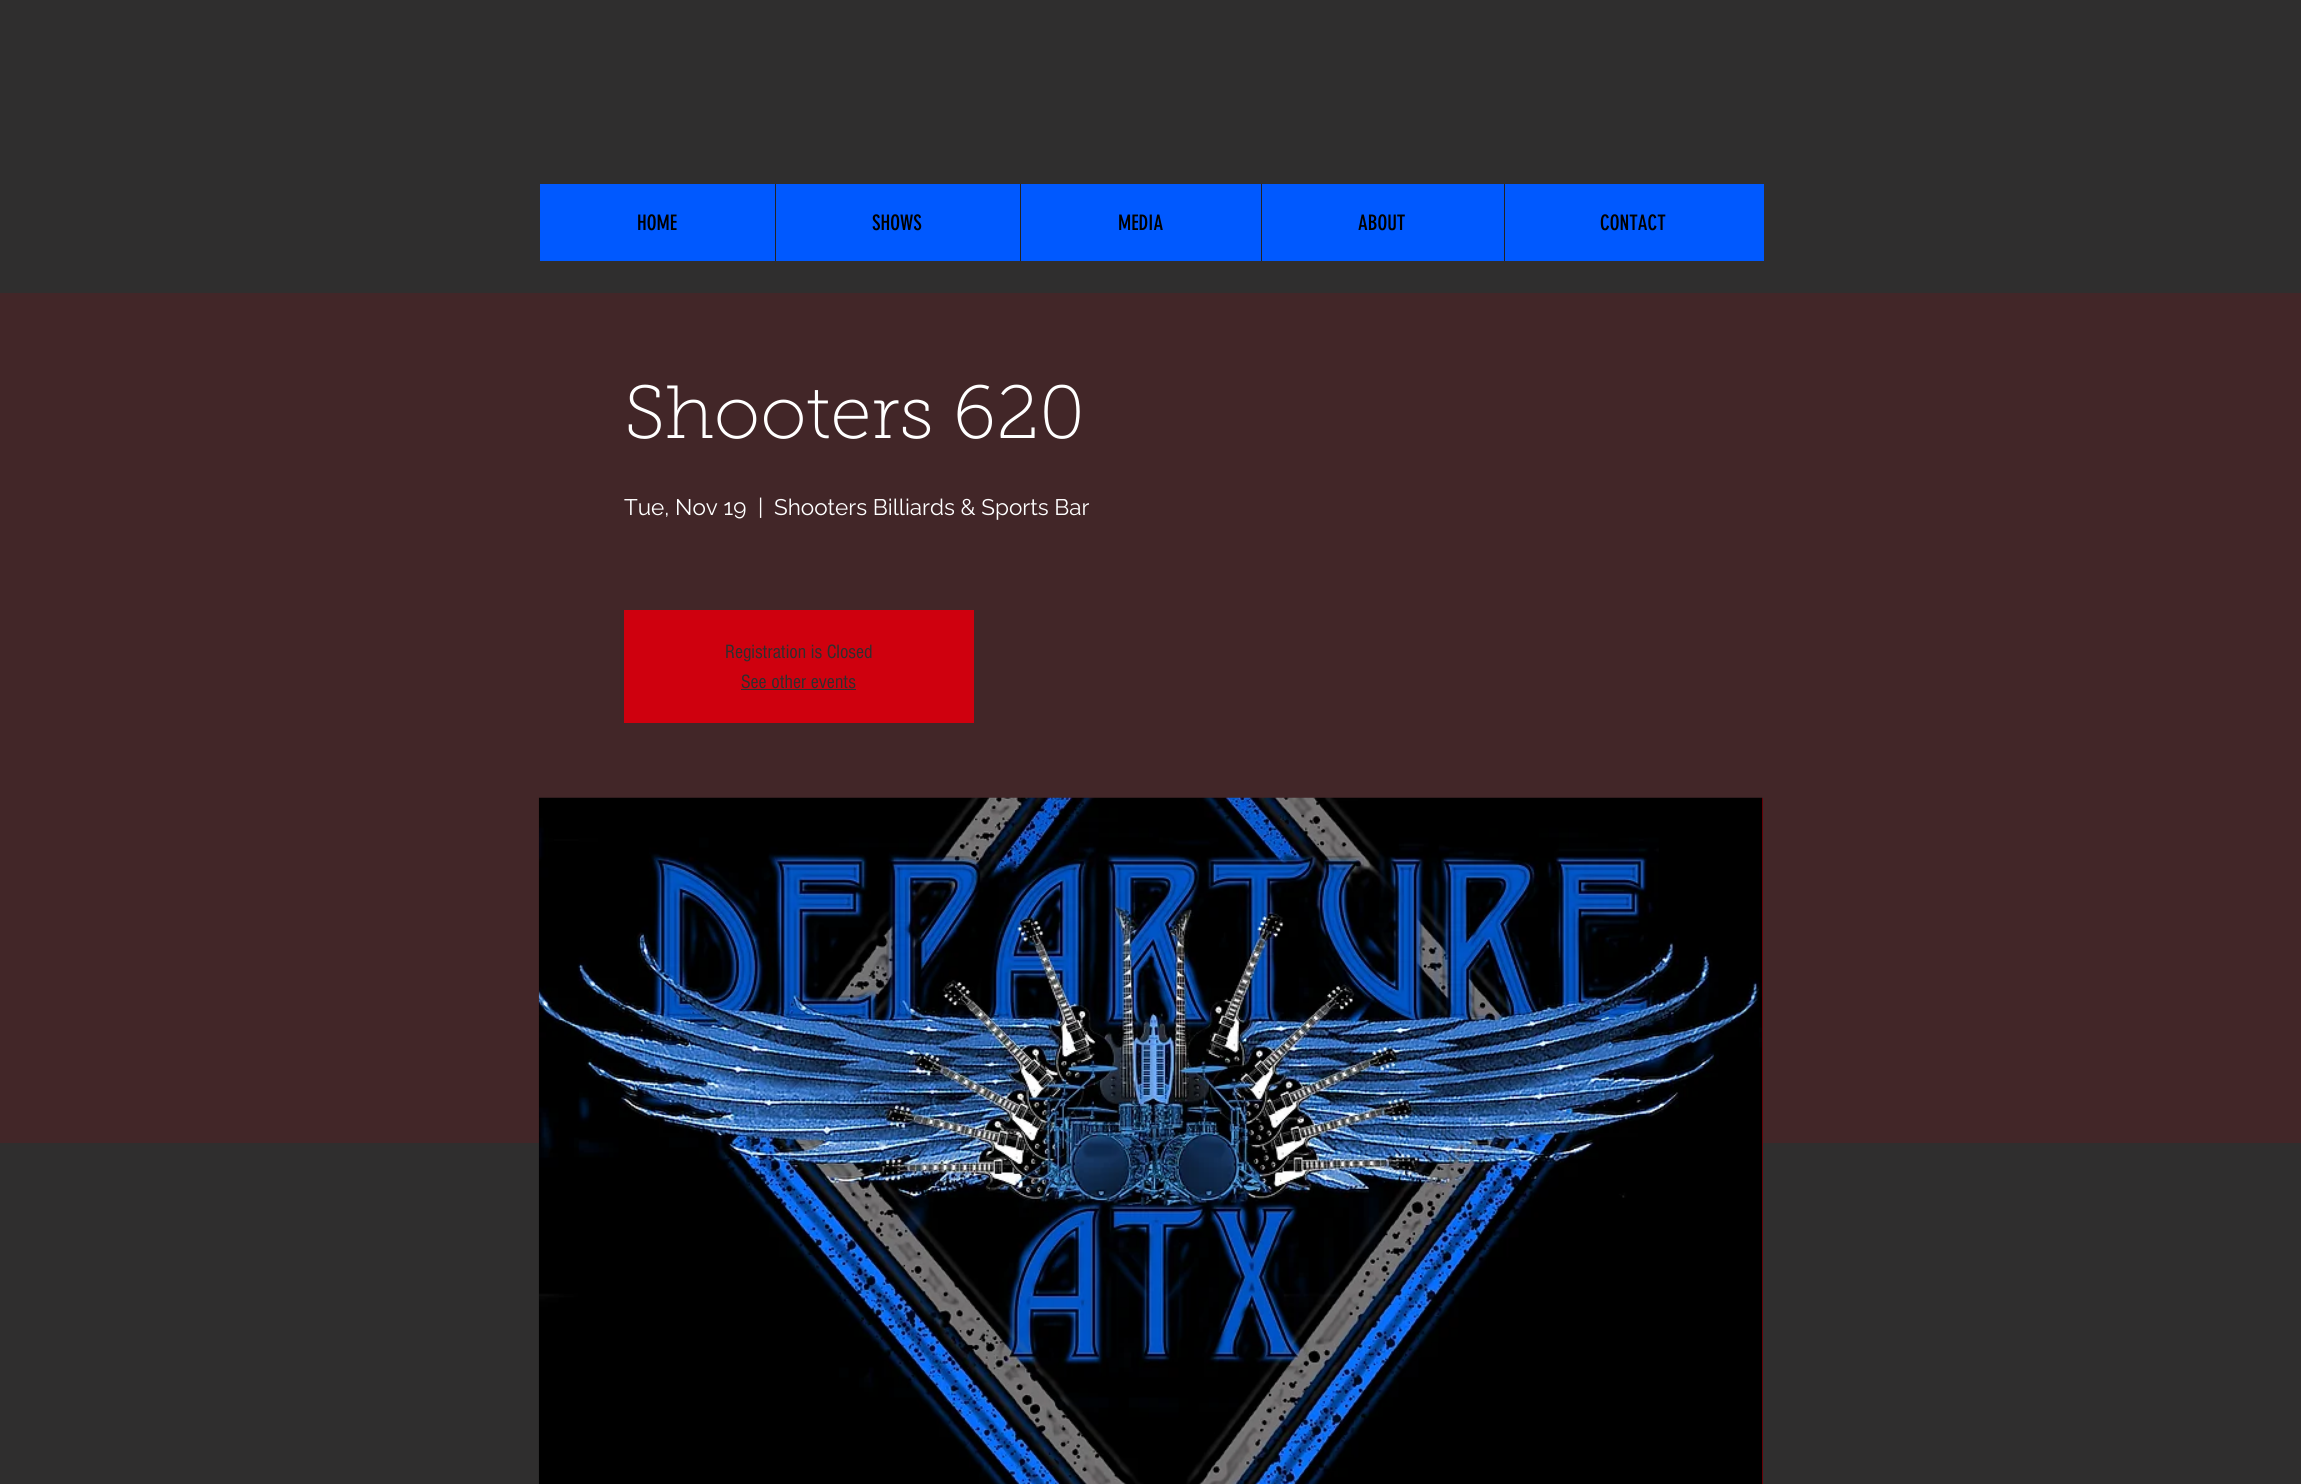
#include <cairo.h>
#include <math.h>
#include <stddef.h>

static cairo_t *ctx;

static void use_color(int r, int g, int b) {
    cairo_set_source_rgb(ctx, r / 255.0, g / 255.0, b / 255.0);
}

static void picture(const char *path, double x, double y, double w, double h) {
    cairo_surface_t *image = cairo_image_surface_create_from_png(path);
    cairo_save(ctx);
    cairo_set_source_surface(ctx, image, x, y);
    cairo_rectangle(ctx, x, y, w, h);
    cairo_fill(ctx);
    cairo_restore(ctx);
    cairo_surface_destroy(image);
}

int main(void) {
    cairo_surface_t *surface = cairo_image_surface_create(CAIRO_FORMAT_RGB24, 2301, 1484);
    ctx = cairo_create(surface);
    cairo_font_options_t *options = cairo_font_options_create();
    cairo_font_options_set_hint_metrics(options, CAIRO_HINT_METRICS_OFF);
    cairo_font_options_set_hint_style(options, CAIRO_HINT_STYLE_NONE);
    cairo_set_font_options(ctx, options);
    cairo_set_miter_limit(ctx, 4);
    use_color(47, 46, 46);
    cairo_paint(ctx);
    use_color(0, 89, 255);
    cairo_rectangle(ctx, 540, 184, 1224, 77);
    cairo_fill(ctx);
    cairo_select_font_face(ctx, "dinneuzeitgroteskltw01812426", CAIRO_FONT_SLANT_NORMAL, CAIRO_FONT_WEIGHT_NORMAL);
    cairo_set_font_size(ctx, 21);
    use_color(0, 0, 0);
    cairo_move_to(ctx, 637, 230);
    cairo_show_text(ctx, "HOME");
    use_color(36, 35, 35);
    cairo_rectangle(ctx, 775, 184, 1, 77);
    cairo_fill(ctx);
    use_color(0, 0, 0);
    cairo_move_to(ctx, 872, 230);
    cairo_show_text(ctx, "SHOWS");
    use_color(36, 35, 35);
    cairo_rectangle(ctx, 1020, 184, 1, 77);
    cairo_fill(ctx);
    use_color(0, 0, 0);
    cairo_move_to(ctx, 1118, 230);
    cairo_show_text(ctx, "MEDIA");
    use_color(36, 35, 35);
    cairo_rectangle(ctx, 1261, 184, 1, 77);
    cairo_fill(ctx);
    use_color(0, 0, 0);
    cairo_move_to(ctx, 1358, 230);
    cairo_show_text(ctx, "ABOUT");
    use_color(36, 35, 35);
    cairo_rectangle(ctx, 1504, 184, 1, 77);
    cairo_fill(ctx);
    use_color(0, 0, 0);
    cairo_move_to(ctx, 1600, 230);
    cairo_show_text(ctx, "CONTACT");
    use_color(66, 38, 40);
    cairo_rectangle(ctx, 0, 293, 2301, 850);
    cairo_fill(ctx);
    cairo_select_font_face(ctx, "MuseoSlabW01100 Thin", CAIRO_FONT_SLANT_NORMAL, CAIRO_FONT_WEIGHT_NORMAL);
    cairo_set_font_size(ctx, 75);
    use_color(255, 255, 255);
    cairo_move_to(ctx, 624, 438);
    cairo_show_text(ctx, "Shooters 620");
    cairo_select_font_face(ctx, "Raleway", CAIRO_FONT_SLANT_NORMAL, CAIRO_FONT_WEIGHT_NORMAL);
    cairo_set_font_size(ctx, 22.5);
    cairo_move_to(ctx, 624, 515);
    cairo_show_text(ctx, "Tue, Nov 19");
    cairo_move_to(ctx, 758, 515);
    cairo_show_text(ctx, "|");
    cairo_move_to(ctx, 774, 515);
    cairo_show_text(ctx, "Shooters Billiards & Sports Bar");
    use_color(207, 0, 14);
    cairo_rectangle(ctx, 624, 610, 350, 113);
    cairo_fill(ctx);
    cairo_select_font_face(ctx, "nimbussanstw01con", CAIRO_FONT_SLANT_NORMAL, CAIRO_FONT_WEIGHT_NORMAL);
    cairo_set_font_size(ctx, 20);
    use_color(47, 46, 46);
    cairo_move_to(ctx, 725, 658);
    cairo_show_text(ctx, "Registration is Closed");
    cairo_move_to(ctx, 741, 688);
    cairo_show_text(ctx, "See other events");
    cairo_rectangle(ctx, 741, 689, 115, 1);
    cairo_fill(ctx);
    use_color(138, 0, 9);
    cairo_rectangle(ctx, 1762, 798, 1, 686);
    cairo_fill(ctx);
    picture("img1.png", 538, 797, 1225, 687);
    cairo_surface_write_to_png(surface, "result.png");
    cairo_font_options_destroy(options);
    cairo_destroy(ctx);
    cairo_surface_destroy(surface);
    return 0;
}
